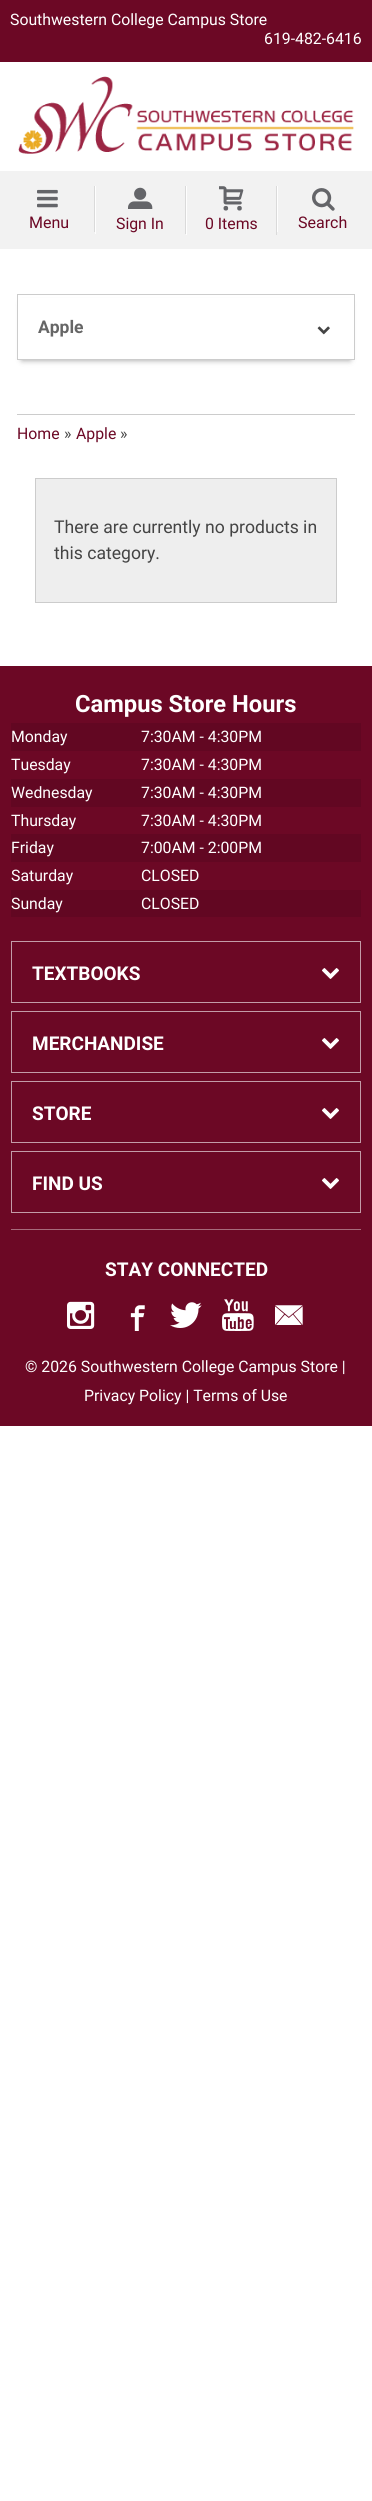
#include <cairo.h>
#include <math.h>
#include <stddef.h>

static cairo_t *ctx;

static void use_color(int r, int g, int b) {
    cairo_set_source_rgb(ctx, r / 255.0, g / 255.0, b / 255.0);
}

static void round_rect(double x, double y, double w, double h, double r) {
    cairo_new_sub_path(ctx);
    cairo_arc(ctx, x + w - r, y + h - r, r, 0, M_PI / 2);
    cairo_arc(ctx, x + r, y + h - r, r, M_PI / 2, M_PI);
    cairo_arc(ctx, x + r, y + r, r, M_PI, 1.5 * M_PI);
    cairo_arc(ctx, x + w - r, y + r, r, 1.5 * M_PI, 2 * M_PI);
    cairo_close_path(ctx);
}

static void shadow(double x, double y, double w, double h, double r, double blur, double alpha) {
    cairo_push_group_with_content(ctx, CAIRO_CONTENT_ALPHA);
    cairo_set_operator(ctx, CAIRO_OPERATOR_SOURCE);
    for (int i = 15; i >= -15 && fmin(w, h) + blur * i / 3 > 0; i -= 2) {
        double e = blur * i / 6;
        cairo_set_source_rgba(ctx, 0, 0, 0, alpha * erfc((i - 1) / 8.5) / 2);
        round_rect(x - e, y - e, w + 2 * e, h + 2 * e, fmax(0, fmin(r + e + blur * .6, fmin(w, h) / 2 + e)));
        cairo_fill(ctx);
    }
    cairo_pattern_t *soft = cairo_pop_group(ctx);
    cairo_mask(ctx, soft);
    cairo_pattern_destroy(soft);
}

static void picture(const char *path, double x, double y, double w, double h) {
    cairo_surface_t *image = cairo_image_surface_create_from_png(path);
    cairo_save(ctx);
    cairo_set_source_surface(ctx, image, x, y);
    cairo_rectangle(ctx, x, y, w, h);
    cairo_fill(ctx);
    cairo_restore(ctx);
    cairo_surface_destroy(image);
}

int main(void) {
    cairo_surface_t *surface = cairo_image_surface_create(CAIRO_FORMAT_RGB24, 372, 2501);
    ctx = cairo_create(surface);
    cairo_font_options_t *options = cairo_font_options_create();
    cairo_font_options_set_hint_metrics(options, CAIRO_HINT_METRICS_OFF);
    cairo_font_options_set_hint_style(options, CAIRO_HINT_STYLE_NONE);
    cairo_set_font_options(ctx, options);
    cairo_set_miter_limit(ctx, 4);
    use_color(255, 255, 255);
    cairo_paint(ctx);
    use_color(108, 8, 37);
    cairo_rectangle(ctx, 0, 0, 372, 62);
    cairo_fill(ctx);
    cairo_select_font_face(ctx, "Roboto", CAIRO_FONT_SLANT_NORMAL, CAIRO_FONT_WEIGHT_NORMAL);
    cairo_set_font_size(ctx, 15.8);
    use_color(255, 255, 255);
    cairo_move_to(ctx, 10, 25);
    cairo_show_text(ctx, "Southwestern College Campus Store");
    cairo_move_to(ctx, 264, 44);
    cairo_show_text(ctx, "619-482-6416");
    picture("img1.png", 18, 76, 336, 78);
    use_color(242, 242, 242);
    cairo_rectangle(ctx, 0, 171, 372, 78);
    cairo_fill(ctx);
    use_color(218, 218, 218);
    cairo_rectangle(ctx, 94, 186, 1, 46);
    cairo_fill(ctx);
    picture("img2.png", 37, 189, 21, 19);
    cairo_set_font_size(ctx, 16);
    use_color(108, 8, 37);
    cairo_move_to(ctx, 29, 228);
    cairo_show_text(ctx, "Menu");
    use_color(218, 218, 218);
    cairo_rectangle(ctx, 185, 186, 1, 48);
    cairo_fill(ctx);
    use_color(254, 254, 254);
    cairo_rectangle(ctx, 95, 186, 1, 48);
    cairo_fill(ctx);
    picture("img3.png", 128, 187, 25, 22);
    cairo_set_font_size(ctx, 15.8);
    use_color(108, 8, 37);
    cairo_move_to(ctx, 116, 229);
    cairo_show_text(ctx, "Sign In");
    use_color(218, 218, 218);
    cairo_rectangle(ctx, 276, 186, 1, 49);
    cairo_fill(ctx);
    use_color(254, 254, 254);
    cairo_rectangle(ctx, 186, 186, 1, 49);
    cairo_fill(ctx);
    picture("img4.png", 219, 186, 25, 25);
    use_color(108, 8, 37);
    cairo_move_to(ctx, 205, 229);
    cairo_show_text(ctx, "0 Items");
    use_color(254, 254, 254);
    cairo_rectangle(ctx, 277, 186, 1, 46);
    cairo_fill(ctx);
    picture("img5.png", 312, 188, 23, 23);
    cairo_set_font_size(ctx, 16);
    use_color(108, 8, 37);
    cairo_move_to(ctx, 298, 228);
    cairo_show_text(ctx, "Search");
    use_color(0, 0, 0);
    shadow(22, 304, 328, 56, 0, 3, 0.4);
    cairo_rectangle(ctx, 17.5, 294.5, 337, 65);
    use_color(204, 204, 204);
    cairo_set_line_width(ctx, 1);
    cairo_stroke(ctx);
    use_color(255, 255, 255);
    cairo_rectangle(ctx, 18, 298, 336, 61);
    cairo_fill(ctx);
    cairo_select_font_face(ctx, "Roboto", CAIRO_FONT_SLANT_NORMAL, CAIRO_FONT_WEIGHT_BOLD);
    cairo_set_font_size(ctx, 17.5);
    use_color(102, 102, 102);
    cairo_move_to(ctx, 38, 333);
    cairo_show_text(ctx, "Apple");
    picture("img6.png", 317, 326, 13, 9);
    use_color(204, 204, 204);
    cairo_rectangle(ctx, 17, 414, 338, 1);
    cairo_fill(ctx);
    cairo_select_font_face(ctx, "Roboto", CAIRO_FONT_SLANT_NORMAL, CAIRO_FONT_WEIGHT_NORMAL);
    cairo_set_font_size(ctx, 15.8);
    use_color(108, 8, 37);
    cairo_move_to(ctx, 17, 439);
    cairo_show_text(ctx, "Home");
    use_color(68, 68, 68);
    cairo_move_to(ctx, 64, 439);
    cairo_show_text(ctx, "»");
    use_color(108, 8, 37);
    cairo_move_to(ctx, 76, 439);
    cairo_show_text(ctx, "Apple");
    use_color(68, 68, 68);
    cairo_move_to(ctx, 120, 439);
    cairo_show_text(ctx, "»");
    use_color(238, 238, 238);
    cairo_rectangle(ctx, 35.5, 478.5, 301, 124);
    cairo_fill_preserve(ctx);
    use_color(204, 204, 204);
    cairo_stroke(ctx);
    cairo_set_font_size(ctx, 17.6);
    use_color(68, 68, 68);
    cairo_move_to(ctx, 54, 533);
    cairo_show_text(ctx, "There are currently no products in");
    cairo_move_to(ctx, 54, 559);
    cairo_show_text(ctx, "this category.");
    use_color(108, 8, 37);
    cairo_rectangle(ctx, 0, 666, 372, 760);
    cairo_fill(ctx);
    cairo_select_font_face(ctx, "Roboto", CAIRO_FONT_SLANT_NORMAL, CAIRO_FONT_WEIGHT_BOLD);
    cairo_set_font_size(ctx, 23.75);
    use_color(255, 255, 255);
    cairo_move_to(ctx, 75, 712);
    cairo_show_text(ctx, "Campus Store Hours");
    use_color(98, 7, 34);
    cairo_rectangle(ctx, 11, 723, 350, 28);
    cairo_fill(ctx);
    cairo_select_font_face(ctx, "Roboto", CAIRO_FONT_SLANT_NORMAL, CAIRO_FONT_WEIGHT_NORMAL);
    cairo_set_font_size(ctx, 15.8);
    use_color(255, 255, 255);
    cairo_move_to(ctx, 11, 742);
    cairo_show_text(ctx, "Monday");
    cairo_move_to(ctx, 141, 742);
    cairo_show_text(ctx, "7:30AM - 4:30PM");
    cairo_move_to(ctx, 11, 770);
    cairo_show_text(ctx, "Tuesday");
    cairo_move_to(ctx, 141, 770);
    cairo_show_text(ctx, "7:30AM - 4:30PM");
    use_color(98, 7, 34);
    cairo_rectangle(ctx, 11, 779, 350, 28);
    cairo_fill(ctx);
    use_color(255, 255, 255);
    cairo_move_to(ctx, 11, 798);
    cairo_show_text(ctx, "Wednesday");
    cairo_move_to(ctx, 141, 798);
    cairo_show_text(ctx, "7:30AM - 4:30PM");
    cairo_move_to(ctx, 11, 826);
    cairo_show_text(ctx, "Thursday");
    cairo_move_to(ctx, 141, 826);
    cairo_show_text(ctx, "7:30AM - 4:30PM");
    use_color(98, 7, 34);
    cairo_rectangle(ctx, 11, 834, 350, 28);
    cairo_fill(ctx);
    use_color(255, 255, 255);
    cairo_move_to(ctx, 11, 853);
    cairo_show_text(ctx, "Friday");
    cairo_move_to(ctx, 141, 853);
    cairo_show_text(ctx, "7:00AM - 2:00PM");
    cairo_move_to(ctx, 11, 881);
    cairo_show_text(ctx, "Saturday");
    cairo_move_to(ctx, 141, 881);
    cairo_show_text(ctx, "CLOSED");
    use_color(98, 7, 34);
    cairo_rectangle(ctx, 11, 890, 350, 27);
    cairo_fill(ctx);
    use_color(255, 255, 255);
    cairo_move_to(ctx, 11, 909);
    cairo_show_text(ctx, "Sunday");
    cairo_move_to(ctx, 141, 909);
    cairo_show_text(ctx, "CLOSED");
    cairo_rectangle(ctx, 11.5, 941.5, 349, 61);
    use_color(196, 156, 168);
    cairo_stroke(ctx);
    cairo_select_font_face(ctx, "Roboto", CAIRO_FONT_SLANT_NORMAL, CAIRO_FONT_WEIGHT_BOLD);
    cairo_set_font_size(ctx, 19);
    use_color(255, 255, 255);
    cairo_move_to(ctx, 32, 980);
    cairo_show_text(ctx, "TEXTBOOKS");
    picture("img7.png", 322, 968, 17, 11);
    cairo_rectangle(ctx, 11.5, 1011.5, 349, 61);
    use_color(196, 156, 168);
    cairo_stroke(ctx);
    use_color(255, 255, 255);
    cairo_move_to(ctx, 32, 1050);
    cairo_show_text(ctx, "MERCHANDISE");
    picture("img7.png", 322, 1038, 17, 11);
    cairo_rectangle(ctx, 11.5, 1081.5, 349, 61);
    use_color(196, 156, 168);
    cairo_stroke(ctx);
    use_color(255, 255, 255);
    cairo_move_to(ctx, 32, 1120);
    cairo_show_text(ctx, "STORE");
    picture("img7.png", 322, 1108, 17, 11);
    cairo_rectangle(ctx, 11.5, 1151.5, 349, 61);
    use_color(196, 156, 168);
    cairo_stroke(ctx);
    use_color(255, 255, 255);
    cairo_move_to(ctx, 32, 1190);
    cairo_show_text(ctx, "FIND US");
    picture("img7.png", 322, 1178, 17, 11);
    use_color(167, 107, 124);
    cairo_rectangle(ctx, 11, 1229, 350, 1);
    cairo_fill(ctx);
    use_color(255, 255, 255);
    cairo_move_to(ctx, 105, 1276);
    cairo_show_text(ctx, "STAY CONNECTED");
    picture("img8.png", 67, 1301, 28, 28);
    picture("img9.png", 130, 1305, 15, 26);
    picture("img10.png", 170, 1302, 32, 26);
    picture("img11.png", 222, 1299, 32, 32);
    picture("img12.png", 275, 1305, 28, 20);
    cairo_select_font_face(ctx, "Roboto", CAIRO_FONT_SLANT_NORMAL, CAIRO_FONT_WEIGHT_NORMAL);
    cairo_set_font_size(ctx, 15.8);
    cairo_move_to(ctx, 25, 1372);
    cairo_show_text(ctx, "© 2026 Southwestern College Campus Store |");
    cairo_move_to(ctx, 84, 1401);
    cairo_show_text(ctx, "Privacy Policy | Terms of Use");
    cairo_surface_write_to_png(surface, "result.png");
    cairo_font_options_destroy(options);
    cairo_destroy(ctx);
    cairo_surface_destroy(surface);
    return 0;
}
